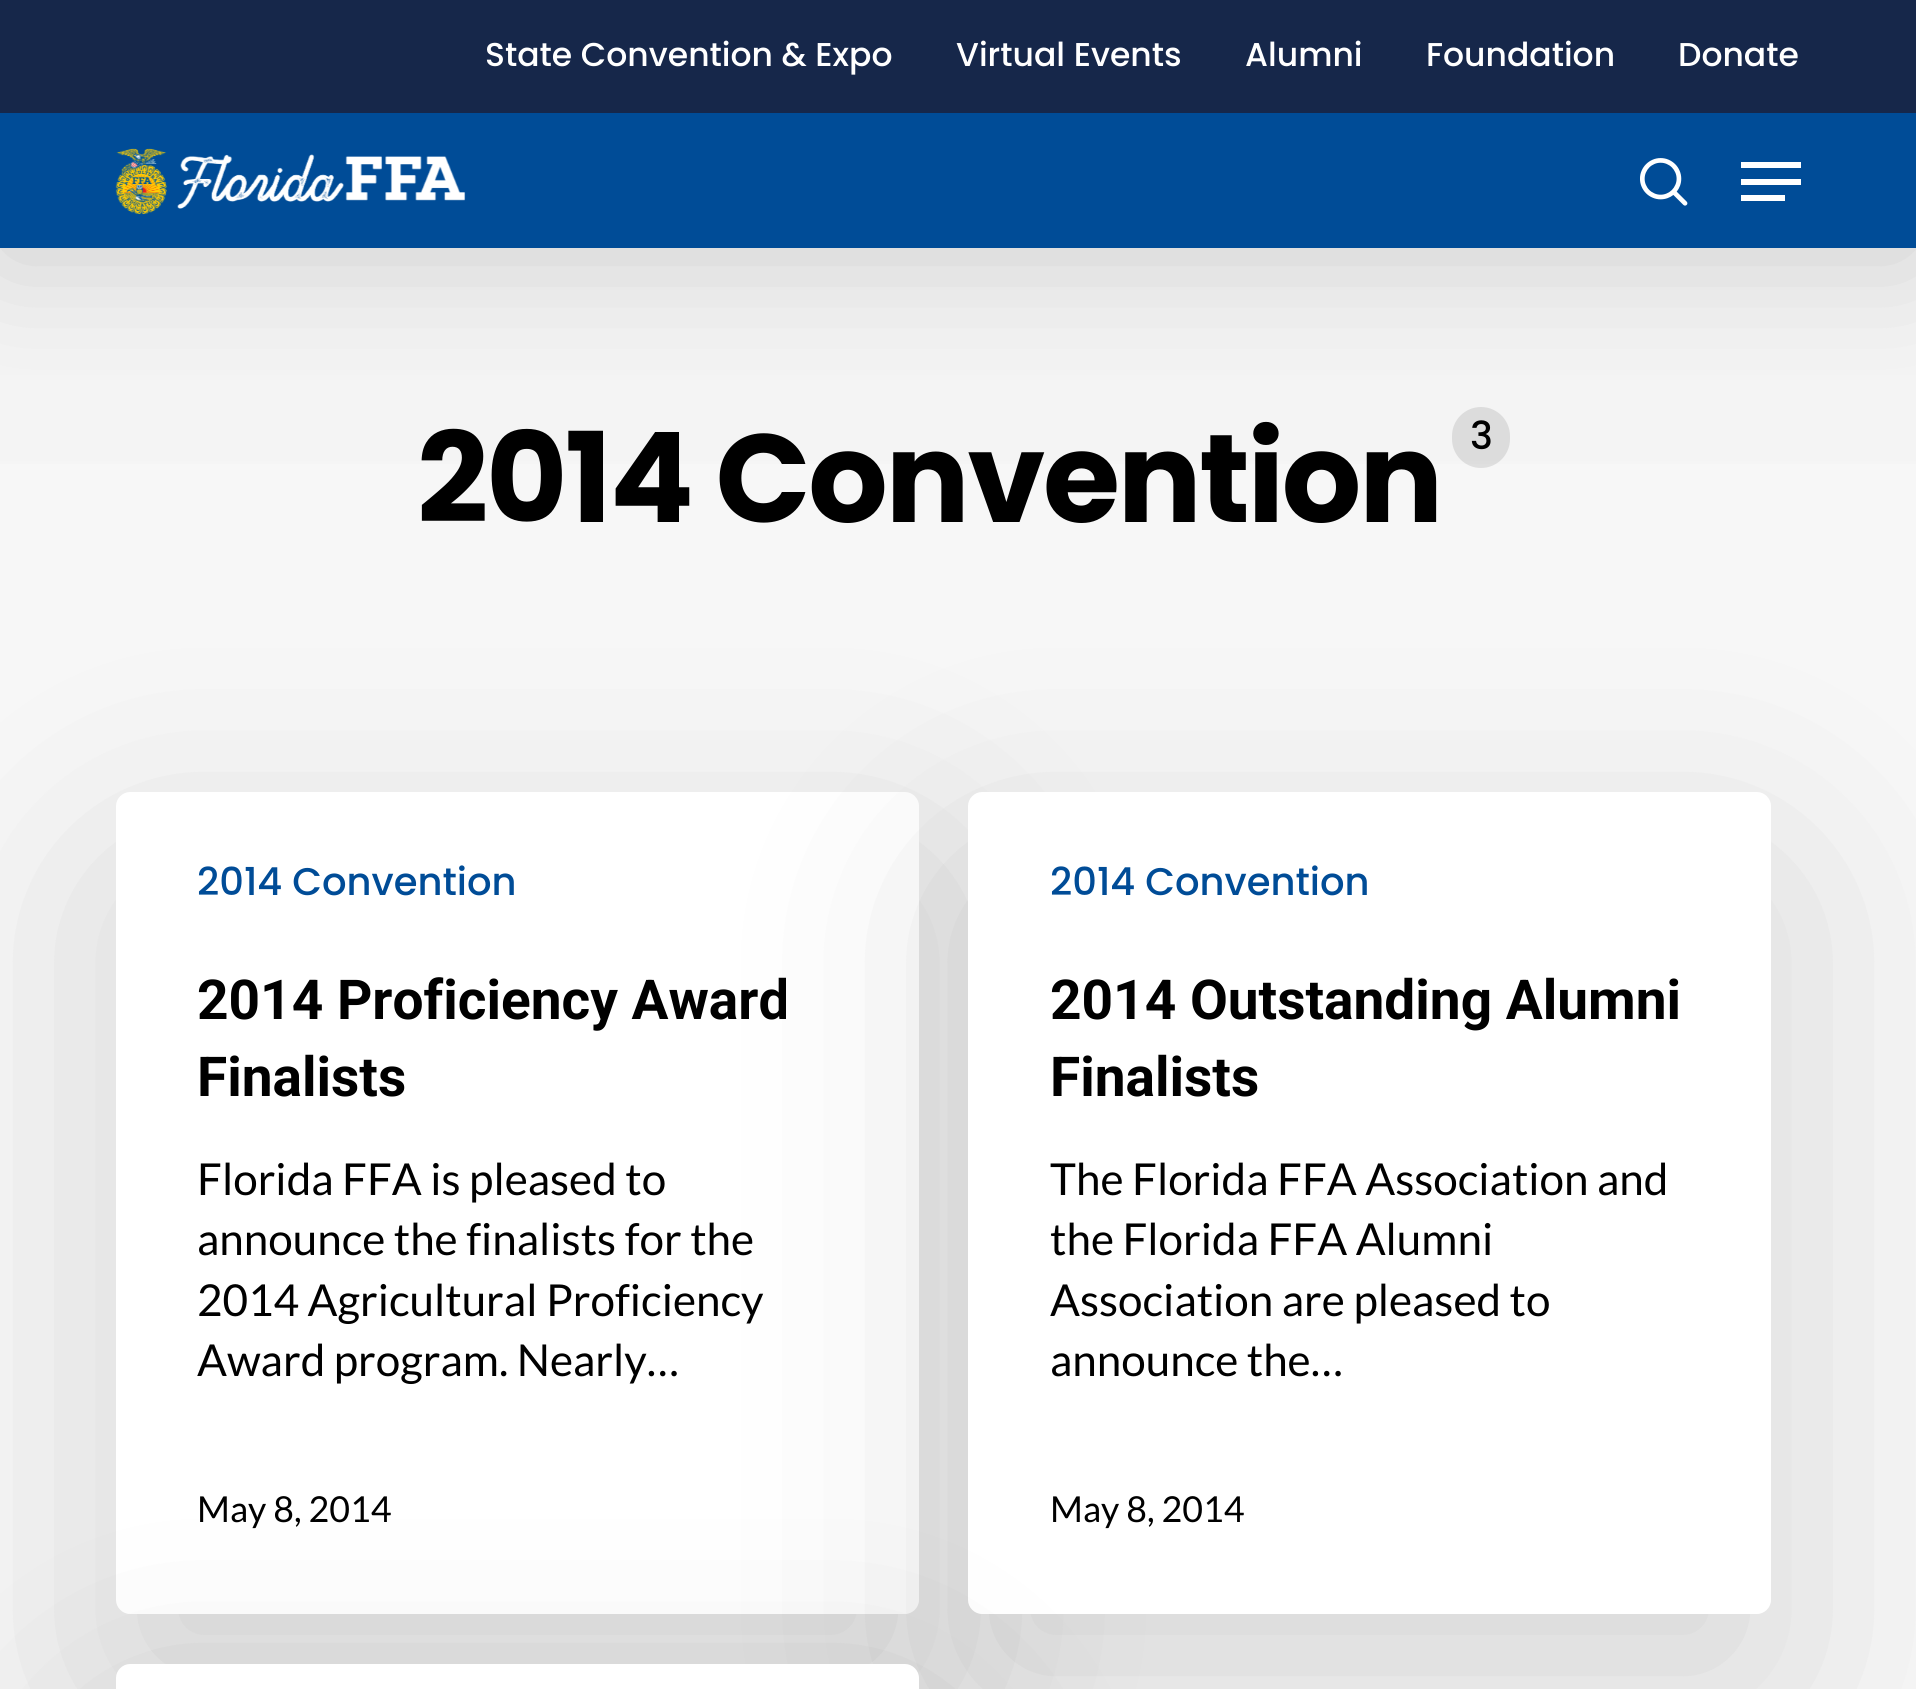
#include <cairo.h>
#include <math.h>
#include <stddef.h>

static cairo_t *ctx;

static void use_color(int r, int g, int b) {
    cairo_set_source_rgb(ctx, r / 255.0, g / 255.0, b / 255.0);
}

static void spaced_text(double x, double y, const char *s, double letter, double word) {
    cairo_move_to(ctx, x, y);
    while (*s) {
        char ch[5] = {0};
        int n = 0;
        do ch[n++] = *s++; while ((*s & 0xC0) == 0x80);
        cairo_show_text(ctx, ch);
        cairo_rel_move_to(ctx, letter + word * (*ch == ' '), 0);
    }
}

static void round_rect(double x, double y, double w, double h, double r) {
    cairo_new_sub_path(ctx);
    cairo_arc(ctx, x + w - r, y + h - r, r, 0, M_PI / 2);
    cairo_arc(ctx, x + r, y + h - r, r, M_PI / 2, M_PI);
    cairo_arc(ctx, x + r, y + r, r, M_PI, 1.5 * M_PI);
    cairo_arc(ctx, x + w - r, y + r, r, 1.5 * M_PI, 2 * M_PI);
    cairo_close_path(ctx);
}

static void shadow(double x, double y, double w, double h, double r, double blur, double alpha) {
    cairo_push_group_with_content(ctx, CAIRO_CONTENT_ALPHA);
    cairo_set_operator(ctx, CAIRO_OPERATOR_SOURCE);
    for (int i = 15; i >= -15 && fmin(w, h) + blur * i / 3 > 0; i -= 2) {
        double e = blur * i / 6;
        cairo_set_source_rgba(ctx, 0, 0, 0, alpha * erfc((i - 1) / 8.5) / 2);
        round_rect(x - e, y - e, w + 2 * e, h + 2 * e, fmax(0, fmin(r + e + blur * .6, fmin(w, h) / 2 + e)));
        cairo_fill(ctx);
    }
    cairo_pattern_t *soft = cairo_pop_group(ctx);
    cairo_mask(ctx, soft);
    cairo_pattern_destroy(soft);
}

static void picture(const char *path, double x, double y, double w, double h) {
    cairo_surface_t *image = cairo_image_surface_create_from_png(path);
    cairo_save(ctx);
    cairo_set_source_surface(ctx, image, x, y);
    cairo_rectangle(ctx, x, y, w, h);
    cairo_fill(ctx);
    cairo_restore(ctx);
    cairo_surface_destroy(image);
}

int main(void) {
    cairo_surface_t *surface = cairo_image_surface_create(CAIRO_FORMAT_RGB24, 1916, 1689);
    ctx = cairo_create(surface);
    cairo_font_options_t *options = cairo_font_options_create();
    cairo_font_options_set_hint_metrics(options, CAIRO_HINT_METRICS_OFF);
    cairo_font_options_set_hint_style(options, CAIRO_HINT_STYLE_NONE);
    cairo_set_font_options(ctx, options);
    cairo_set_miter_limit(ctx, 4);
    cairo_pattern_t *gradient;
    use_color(247, 247, 247);
    cairo_paint(ctx);
    gradient = cairo_pattern_create_linear(958, 247, 958, 682);
    cairo_pattern_add_color_stop_rgba(gradient, 0, 0.949, 0.949, 0.949, 1);
    cairo_pattern_add_color_stop_rgba(gradient, 1, 0.969, 0.969, 0.969, 1);
    cairo_set_source(ctx, gradient);
    cairo_pattern_destroy(gradient);
    cairo_rectangle(ctx, 0, 248, 1916, 216);
    cairo_fill(ctx);
    cairo_set_source_rgba(ctx, 0, 0, 0, 0.1);
    round_rect(1452, 407, 58, 61, 29);
    cairo_fill(ctx);
    use_color(0, 0, 0);
    shadow(0, 8, 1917, 248, 0, 62, 0.15);
    use_color(0, 76, 151);
    cairo_rectangle(ctx, 0, 113, 1916, 135);
    cairo_fill(ctx);
    use_color(22, 39, 74);
    cairo_rectangle(ctx, 0, 0, 1916, 113);
    cairo_fill(ctx);
    cairo_select_font_face(ctx, "Poppins Medium", CAIRO_FONT_SLANT_NORMAL, CAIRO_FONT_WEIGHT_NORMAL);
    cairo_set_font_size(ctx, 33);
    use_color(255, 255, 255);
    cairo_move_to(ctx, 485, 66);
    cairo_show_text(ctx, "State Convention & Expo");
    cairo_move_to(ctx, 956, 66);
    cairo_show_text(ctx, "Virtual Events");
    cairo_move_to(ctx, 1245, 66);
    cairo_show_text(ctx, "Alumni");
    cairo_move_to(ctx, 1426, 66);
    cairo_show_text(ctx, "Foundation");
    cairo_move_to(ctx, 1678, 66);
    cairo_show_text(ctx, "Donate");
    picture("img1.png", 115, 148, 351, 67);
    picture("img2.png", 1640, 158, 48, 48);
    cairo_rectangle(ctx, 1741, 162, 60, 6);
    cairo_fill(ctx);
    cairo_rectangle(ctx, 1741, 195, 44, 6);
    cairo_fill(ctx);
    cairo_rectangle(ctx, 1741, 179, 60, 6);
    cairo_fill(ctx);
    use_color(0, 0, 0);
    shadow(116, 875, 803, 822, 14, 124, 0.14);
    use_color(255, 255, 255);
    cairo_new_path(ctx);
    cairo_move_to(ctx, 130, 792);
    cairo_line_to(ctx, 905, 792);
    cairo_curve_to(ctx, 912.5, 792, 919, 798.5, 919, 806);
    cairo_line_to(ctx, 919, 932);
    cairo_line_to(ctx, 116, 932);
    cairo_line_to(ctx, 116, 806);
    cairo_curve_to(ctx, 116, 798.5, 122.5, 792, 130, 792);
    cairo_close_path(ctx);
    cairo_fill(ctx);
    cairo_new_path(ctx);
    cairo_move_to(ctx, 116, 932);
    cairo_line_to(ctx, 919, 932);
    cairo_line_to(ctx, 919, 1600);
    cairo_curve_to(ctx, 919, 1607.5, 912.5, 1614, 905, 1614);
    cairo_line_to(ctx, 130, 1614);
    cairo_curve_to(ctx, 122.5, 1614, 116, 1607.5, 116, 1600);
    cairo_close_path(ctx);
    cairo_fill(ctx);
    use_color(0, 0, 0);
    shadow(968, 875, 803, 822, 14, 124, 0.14);
    cairo_select_font_face(ctx, "Poppins", CAIRO_FONT_SLANT_NORMAL, CAIRO_FONT_WEIGHT_BOLD);
    cairo_set_font_size(ctx, 125);
    use_color(0, 0, 0);
    spaced_text(417, 522, "2014 Convention", -2.5, 0);
    cairo_select_font_face(ctx, "Poppins Medium", CAIRO_FONT_SLANT_NORMAL, CAIRO_FONT_WEIGHT_NORMAL);
    cairo_set_font_size(ctx, 38.5);
    spaced_text(1470, 449, "3", -2.5, 0);
    use_color(0, 76, 151);
    cairo_move_to(ctx, 197, 895);
    cairo_show_text(ctx, "2014 Convention");
    cairo_select_font_face(ctx, "Roboto", CAIRO_FONT_SLANT_NORMAL, CAIRO_FONT_WEIGHT_BOLD);
    cairo_set_font_size(ctx, 55);
    use_color(0, 0, 0);
    cairo_move_to(ctx, 197, 1019);
    cairo_show_text(ctx, "2014 Proficiency Award");
    cairo_move_to(ctx, 197, 1096);
    cairo_show_text(ctx, "Finalists");
    cairo_select_font_face(ctx, "Lato", CAIRO_FONT_SLANT_NORMAL, CAIRO_FONT_WEIGHT_NORMAL);
    cairo_set_font_size(ctx, 44);
    cairo_move_to(ctx, 197, 1195);
    cairo_show_text(ctx, "Florida FFA is pleased to");
    cairo_move_to(ctx, 197, 1255);
    cairo_show_text(ctx, "announce the finalists for the");
    cairo_move_to(ctx, 197, 1316);
    cairo_show_text(ctx, "2014 Agricultural Proficiency");
    cairo_move_to(ctx, 197, 1376);
    cairo_show_text(ctx, "Award program. Nearly…");
    cairo_set_font_size(ctx, 35.75);
    cairo_move_to(ctx, 197, 1522);
    cairo_show_text(ctx, "May 8, 2014");
    use_color(255, 255, 255);
    cairo_new_path(ctx);
    cairo_move_to(ctx, 982, 792);
    cairo_line_to(ctx, 1757, 792);
    cairo_curve_to(ctx, 1764.5, 792, 1771, 798.5, 1771, 806);
    cairo_line_to(ctx, 1771, 932);
    cairo_line_to(ctx, 968, 932);
    cairo_line_to(ctx, 968, 806);
    cairo_curve_to(ctx, 968, 798.5, 974.5, 792, 982, 792);
    cairo_close_path(ctx);
    cairo_fill(ctx);
    cairo_select_font_face(ctx, "Poppins Medium", CAIRO_FONT_SLANT_NORMAL, CAIRO_FONT_WEIGHT_NORMAL);
    cairo_set_font_size(ctx, 38.5);
    use_color(0, 76, 151);
    cairo_move_to(ctx, 1050, 895);
    cairo_show_text(ctx, "2014 Convention");
    use_color(255, 255, 255);
    cairo_new_path(ctx);
    cairo_move_to(ctx, 968, 932);
    cairo_line_to(ctx, 1771, 932);
    cairo_line_to(ctx, 1771, 1600);
    cairo_curve_to(ctx, 1771, 1607.5, 1764.5, 1614, 1757, 1614);
    cairo_line_to(ctx, 982, 1614);
    cairo_curve_to(ctx, 974.5, 1614, 968, 1607.5, 968, 1600);
    cairo_close_path(ctx);
    cairo_fill(ctx);
    cairo_select_font_face(ctx, "Roboto", CAIRO_FONT_SLANT_NORMAL, CAIRO_FONT_WEIGHT_BOLD);
    cairo_set_font_size(ctx, 55);
    use_color(0, 0, 0);
    cairo_move_to(ctx, 1050, 1019);
    cairo_show_text(ctx, "2014 Outstanding Alumni");
    cairo_move_to(ctx, 1050, 1096);
    cairo_show_text(ctx, "Finalists");
    cairo_select_font_face(ctx, "Lato", CAIRO_FONT_SLANT_NORMAL, CAIRO_FONT_WEIGHT_NORMAL);
    cairo_set_font_size(ctx, 44);
    cairo_move_to(ctx, 1050, 1195);
    cairo_show_text(ctx, "The Florida FFA Association and");
    cairo_move_to(ctx, 1050, 1255);
    cairo_show_text(ctx, "the Florida FFA Alumni");
    cairo_move_to(ctx, 1050, 1316);
    cairo_show_text(ctx, "Association are pleased to");
    cairo_move_to(ctx, 1050, 1376);
    cairo_show_text(ctx, "announce the…");
    cairo_set_font_size(ctx, 35.75);
    cairo_move_to(ctx, 1050, 1522);
    cairo_show_text(ctx, "May 8, 2014");
    use_color(0, 0, 0);
    shadow(116, 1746, 803, 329, 14, 124, 0.14);
    use_color(255, 255, 255);
    cairo_new_path(ctx);
    cairo_move_to(ctx, 130, 1664);
    cairo_line_to(ctx, 905, 1664);
    cairo_curve_to(ctx, 912.5, 1664, 919, 1670.5, 919, 1678);
    cairo_line_to(ctx, 919, 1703);
    cairo_line_to(ctx, 116, 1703);
    cairo_line_to(ctx, 116, 1678);
    cairo_curve_to(ctx, 116, 1670.5, 122.5, 1664, 130, 1664);
    cairo_close_path(ctx);
    cairo_fill(ctx);
    cairo_surface_write_to_png(surface, "result.png");
    cairo_font_options_destroy(options);
    cairo_destroy(ctx);
    cairo_surface_destroy(surface);
    return 0;
}
